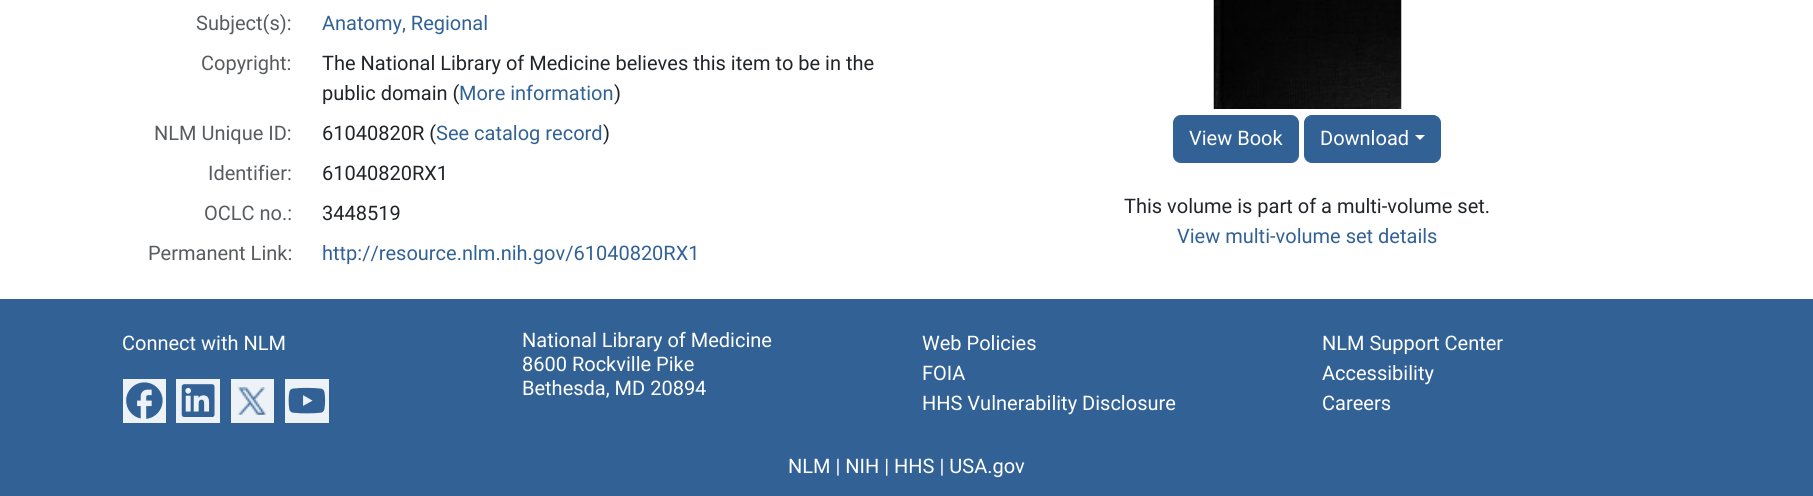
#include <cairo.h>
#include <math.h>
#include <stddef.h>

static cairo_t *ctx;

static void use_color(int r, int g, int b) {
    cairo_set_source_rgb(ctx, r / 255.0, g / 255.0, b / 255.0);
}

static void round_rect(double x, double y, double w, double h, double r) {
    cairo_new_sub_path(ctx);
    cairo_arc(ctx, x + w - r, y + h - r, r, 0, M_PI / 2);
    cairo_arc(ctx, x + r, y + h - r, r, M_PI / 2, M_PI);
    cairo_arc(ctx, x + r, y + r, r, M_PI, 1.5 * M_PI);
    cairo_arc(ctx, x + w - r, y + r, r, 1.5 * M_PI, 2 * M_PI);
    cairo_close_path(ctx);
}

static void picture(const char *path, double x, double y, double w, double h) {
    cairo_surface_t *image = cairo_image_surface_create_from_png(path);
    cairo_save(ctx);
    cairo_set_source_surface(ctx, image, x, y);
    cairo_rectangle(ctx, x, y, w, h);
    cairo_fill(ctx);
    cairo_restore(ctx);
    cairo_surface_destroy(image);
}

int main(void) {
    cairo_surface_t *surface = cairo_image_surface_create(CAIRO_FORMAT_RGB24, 1813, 496);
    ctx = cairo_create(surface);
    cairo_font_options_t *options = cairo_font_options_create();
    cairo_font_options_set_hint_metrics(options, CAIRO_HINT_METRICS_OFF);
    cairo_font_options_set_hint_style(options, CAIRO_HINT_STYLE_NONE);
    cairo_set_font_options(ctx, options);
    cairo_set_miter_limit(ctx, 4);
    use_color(255, 255, 255);
    cairo_paint(ctx);
    cairo_select_font_face(ctx, "Roboto", CAIRO_FONT_SLANT_NORMAL, CAIRO_FONT_WEIGHT_NORMAL);
    cairo_set_font_size(ctx, 20);
    use_color(89, 92, 95);
    cairo_move_to(ctx, 196, 30);
    cairo_show_text(ctx, "Subject(s):");
    use_color(50, 98, 149);
    cairo_move_to(ctx, 322, 30);
    cairo_show_text(ctx, "Anatomy, Regional");
    use_color(89, 92, 95);
    cairo_move_to(ctx, 201, 70);
    cairo_show_text(ctx, "Copyright:");
    use_color(33, 37, 41);
    cairo_move_to(ctx, 322, 70);
    cairo_show_text(ctx, "The National Library of Medicine believes this item to be in the");
    cairo_move_to(ctx, 322, 100);
    cairo_show_text(ctx, "public domain (");
    use_color(50, 98, 149);
    cairo_move_to(ctx, 459, 100);
    cairo_show_text(ctx, "More information");
    use_color(33, 37, 41);
    cairo_move_to(ctx, 614, 100);
    cairo_show_text(ctx, ")");
    use_color(89, 92, 95);
    cairo_move_to(ctx, 154, 140);
    cairo_show_text(ctx, "NLM Unique ID:");
    use_color(33, 37, 41);
    cairo_move_to(ctx, 322, 140);
    cairo_show_text(ctx, "61040820R (");
    use_color(50, 98, 149);
    cairo_move_to(ctx, 436, 140);
    cairo_show_text(ctx, "See catalog record");
    use_color(33, 37, 41);
    cairo_move_to(ctx, 603, 140);
    cairo_show_text(ctx, ")");
    use_color(89, 92, 95);
    cairo_move_to(ctx, 208, 180);
    cairo_show_text(ctx, "Identifier:");
    use_color(33, 37, 41);
    cairo_move_to(ctx, 322, 180);
    cairo_show_text(ctx, "61040820RX1");
    use_color(89, 92, 95);
    cairo_move_to(ctx, 204, 220);
    cairo_show_text(ctx, "OCLC no.:");
    use_color(33, 37, 41);
    cairo_move_to(ctx, 322, 220);
    cairo_show_text(ctx, "3448519");
    use_color(89, 92, 95);
    cairo_move_to(ctx, 148, 260);
    cairo_show_text(ctx, "Permanent Link:");
    use_color(50, 98, 149);
    cairo_move_to(ctx, 322, 260);
    cairo_show_text(ctx, "http://resource.nlm.nih.gov/61040820RX1");
    picture("img1.png", 1213, 0, 189, 109);
    round_rect(1173.5, 115.5, 125, 47, 7.5);
    cairo_fill_preserve(ctx);
    cairo_set_line_width(ctx, 1);
    cairo_stroke(ctx);
    use_color(255, 255, 255);
    cairo_move_to(ctx, 1189, 145);
    cairo_show_text(ctx, "View Book");
    use_color(50, 98, 149);
    round_rect(1304.5, 115.5, 136, 47, 7.5);
    cairo_fill_preserve(ctx);
    cairo_stroke(ctx);
    use_color(255, 255, 255);
    cairo_move_to(ctx, 1320, 145);
    cairo_show_text(ctx, "Download");
    cairo_new_path(ctx);
    cairo_move_to(ctx, 1415, 135);
    cairo_line_to(ctx, 1425, 135);
    cairo_line_to(ctx, 1420, 140);
    cairo_close_path(ctx);
    cairo_fill(ctx);
    use_color(33, 37, 41);
    cairo_move_to(ctx, 1124, 213);
    cairo_show_text(ctx, "This volume is part of a multi-volume set.");
    use_color(50, 98, 149);
    cairo_move_to(ctx, 1177, 243);
    cairo_show_text(ctx, "View multi-volume set details");
    cairo_rectangle(ctx, 0, 299, 1813, 197);
    cairo_fill(ctx);
    use_color(255, 255, 255);
    cairo_move_to(ctx, 122, 350);
    cairo_show_text(ctx, "Connect with NLM");
    use_color(237, 242, 247);
    cairo_rectangle(ctx, 123, 379, 43, 44);
    cairo_fill(ctx);
    picture("img2.png", 126, 382, 37, 37);
    cairo_rectangle(ctx, 176, 379, 44, 44);
    cairo_fill(ctx);
    picture("img3.png", 181, 384, 34, 33);
    cairo_rectangle(ctx, 231, 379, 43, 44);
    cairo_fill(ctx);
    picture("img4.png", 237, 387, 29, 28);
    cairo_rectangle(ctx, 285, 379, 44, 44);
    cairo_fill(ctx);
    picture("img5.png", 288, 387, 38, 27);
    use_color(255, 255, 255);
    cairo_move_to(ctx, 522, 347);
    cairo_show_text(ctx, "National Library of Medicine");
    cairo_move_to(ctx, 522, 371);
    cairo_show_text(ctx, "8600 Rockville Pike");
    cairo_move_to(ctx, 522, 395);
    cairo_show_text(ctx, "Bethesda, MD 20894");
    cairo_move_to(ctx, 922, 350);
    cairo_show_text(ctx, "Web Policies");
    cairo_move_to(ctx, 922, 380);
    cairo_show_text(ctx, "FOIA");
    cairo_move_to(ctx, 922, 410);
    cairo_show_text(ctx, "HHS Vulnerability Disclosure");
    cairo_move_to(ctx, 1322, 350);
    cairo_show_text(ctx, "NLM Support Center");
    cairo_move_to(ctx, 1322, 380);
    cairo_show_text(ctx, "Accessibility");
    cairo_move_to(ctx, 1322, 410);
    cairo_show_text(ctx, "Careers");
    cairo_move_to(ctx, 788, 473);
    cairo_show_text(ctx, "NLM | NIH | HHS | USA.gov");
    cairo_surface_write_to_png(surface, "result.png");
    cairo_font_options_destroy(options);
    cairo_destroy(ctx);
    cairo_surface_destroy(surface);
    return 0;
}
